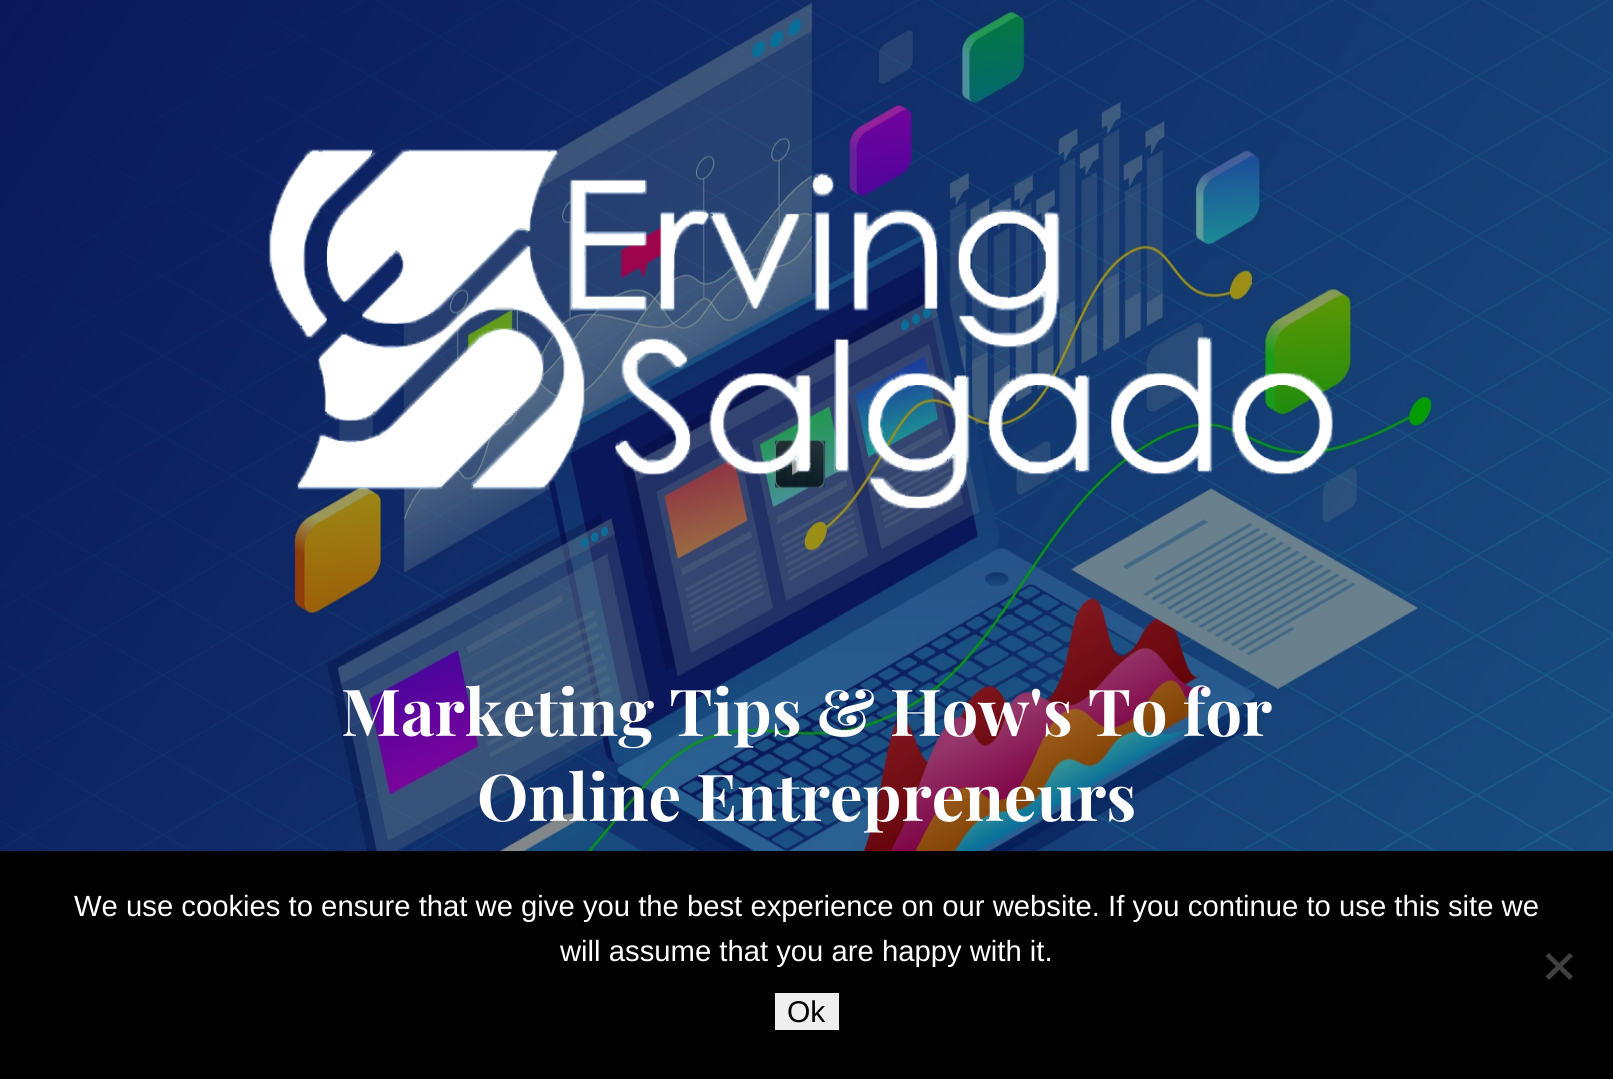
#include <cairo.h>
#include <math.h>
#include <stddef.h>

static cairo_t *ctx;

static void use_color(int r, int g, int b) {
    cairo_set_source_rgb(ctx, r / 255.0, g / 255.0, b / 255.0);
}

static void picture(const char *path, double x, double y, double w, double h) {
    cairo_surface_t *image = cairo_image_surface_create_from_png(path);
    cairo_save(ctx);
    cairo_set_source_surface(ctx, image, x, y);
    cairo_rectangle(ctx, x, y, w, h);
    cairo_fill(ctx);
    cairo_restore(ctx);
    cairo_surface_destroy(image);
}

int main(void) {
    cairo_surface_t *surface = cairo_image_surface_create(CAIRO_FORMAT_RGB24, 1613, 1079);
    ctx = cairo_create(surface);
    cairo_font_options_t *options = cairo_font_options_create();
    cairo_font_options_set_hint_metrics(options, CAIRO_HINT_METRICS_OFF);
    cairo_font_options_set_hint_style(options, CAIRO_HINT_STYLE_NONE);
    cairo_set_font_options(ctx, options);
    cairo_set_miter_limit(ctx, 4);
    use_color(255, 255, 255);
    cairo_paint(ctx);
    picture("img1.png", 0, 0, 1613, 851);
    picture("img2.png", 268, 149, 1065, 360);
    cairo_select_font_face(ctx, "Playfair Display", CAIRO_FONT_SLANT_NORMAL, CAIRO_FONT_WEIGHT_BOLD);
    cairo_set_font_size(ctx, 64.75);
    use_color(255, 255, 255);
    cairo_move_to(ctx, 341, 736);
    cairo_show_text(ctx, "Marketing Tips & How's To for");
    cairo_move_to(ctx, 477, 821);
    cairo_show_text(ctx, "Online Entrepreneurs");
    use_color(0, 0, 0);
    cairo_rectangle(ctx, 0, 851, 1613, 228);
    cairo_fill(ctx);
    cairo_select_font_face(ctx, "Liberation Sans", CAIRO_FONT_SLANT_NORMAL, CAIRO_FONT_WEIGHT_NORMAL);
    cairo_set_font_size(ctx, 29.25);
    use_color(255, 255, 255);
    cairo_move_to(ctx, 74, 916);
    cairo_show_text(ctx, "We use cookies to ensure that we give you the best experience on our website. If you continue to use this site we");
    cairo_move_to(ctx, 560, 961);
    cairo_show_text(ctx, "will assume that you are happy with it.");
    use_color(64, 64, 64);
    cairo_new_path(ctx);
    cairo_move_to(ctx, 1569.5, 953);
    cairo_line_to(ctx, 1573, 956);
    cairo_line_to(ctx, 1549, 980);
    cairo_line_to(ctx, 1545.5, 976.5);
    cairo_close_path(ctx);
    cairo_fill(ctx);
    cairo_new_path(ctx);
    cairo_move_to(ctx, 1545.5, 956);
    cairo_line_to(ctx, 1549, 953);
    cairo_line_to(ctx, 1573, 976.5);
    cairo_line_to(ctx, 1569.5, 980);
    cairo_close_path(ctx);
    cairo_fill(ctx);
    use_color(239, 239, 239);
    cairo_rectangle(ctx, 775, 993, 64, 37);
    cairo_fill(ctx);
    cairo_set_font_size(ctx, 30);
    use_color(0, 0, 0);
    cairo_move_to(ctx, 787, 1022);
    cairo_show_text(ctx, "Ok");
    cairo_surface_write_to_png(surface, "result.png");
    cairo_font_options_destroy(options);
    cairo_destroy(ctx);
    cairo_surface_destroy(surface);
    return 0;
}
